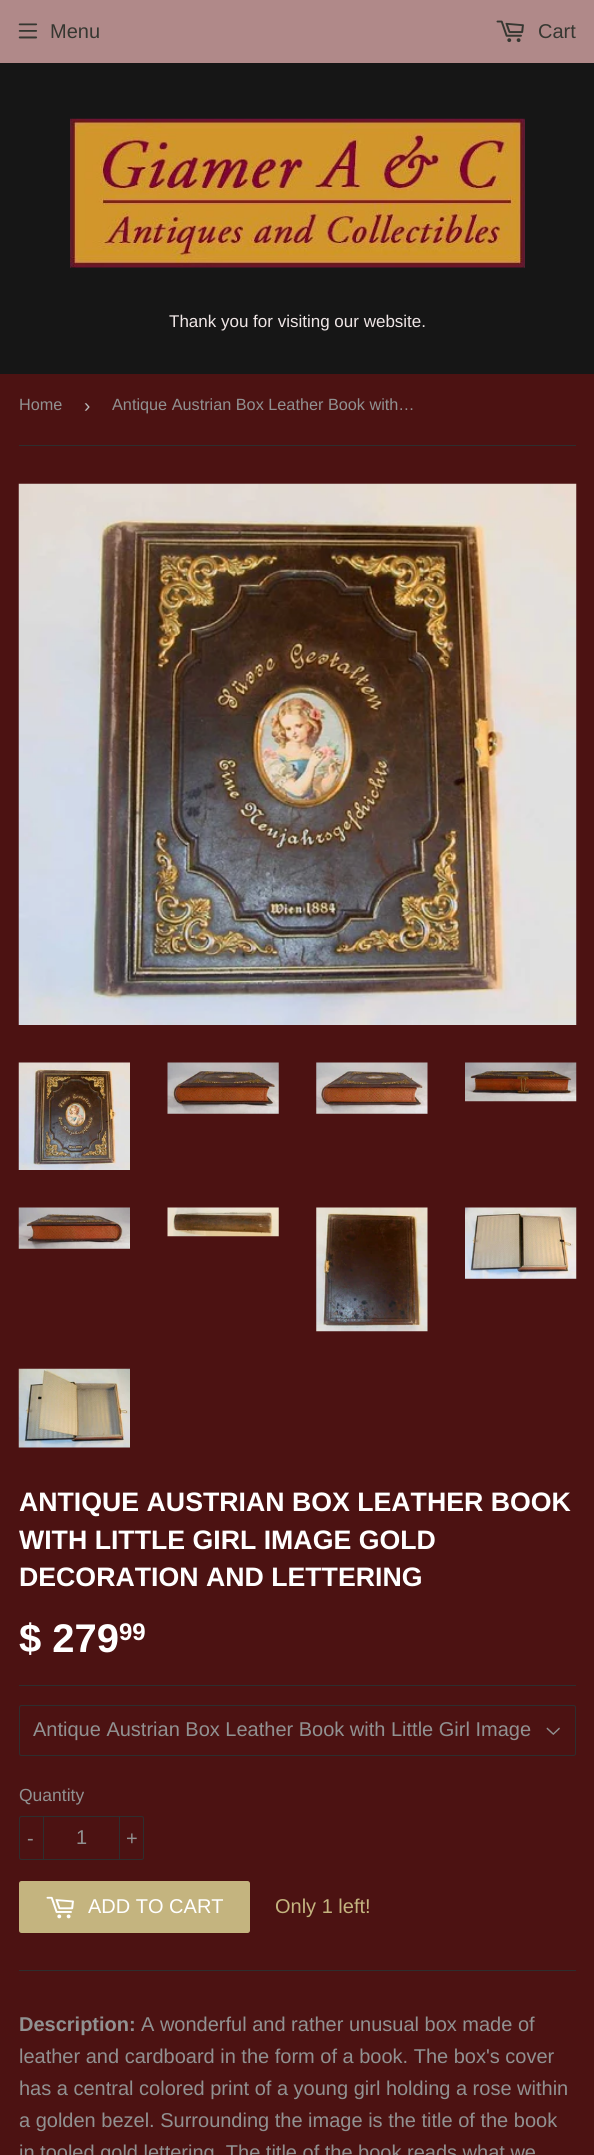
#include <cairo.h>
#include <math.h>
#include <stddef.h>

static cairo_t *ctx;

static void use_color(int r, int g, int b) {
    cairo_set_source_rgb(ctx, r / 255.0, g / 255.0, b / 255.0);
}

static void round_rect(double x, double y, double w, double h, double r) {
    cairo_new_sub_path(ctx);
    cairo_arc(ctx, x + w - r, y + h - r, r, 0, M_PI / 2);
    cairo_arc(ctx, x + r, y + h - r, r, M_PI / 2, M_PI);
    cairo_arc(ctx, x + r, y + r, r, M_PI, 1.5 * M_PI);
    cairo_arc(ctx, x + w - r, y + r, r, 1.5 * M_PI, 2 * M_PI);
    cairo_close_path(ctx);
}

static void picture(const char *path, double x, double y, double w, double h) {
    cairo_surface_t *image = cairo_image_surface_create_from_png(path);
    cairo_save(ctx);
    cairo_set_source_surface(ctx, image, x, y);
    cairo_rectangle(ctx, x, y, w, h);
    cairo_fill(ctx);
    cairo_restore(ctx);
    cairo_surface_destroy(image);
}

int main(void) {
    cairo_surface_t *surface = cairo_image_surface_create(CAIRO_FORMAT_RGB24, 594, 2155);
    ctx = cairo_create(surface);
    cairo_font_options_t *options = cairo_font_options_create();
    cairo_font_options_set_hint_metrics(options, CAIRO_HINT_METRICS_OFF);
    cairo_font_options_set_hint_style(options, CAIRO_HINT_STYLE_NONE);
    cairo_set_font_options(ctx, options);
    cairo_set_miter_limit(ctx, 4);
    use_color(76, 18, 18);
    cairo_paint(ctx);
    use_color(176, 137, 137);
    cairo_rectangle(ctx, 0, 0, 594, 63);
    cairo_fill(ctx);
    picture("img1.png", 18, 23, 20, 16);
    cairo_select_font_face(ctx, "Liberation Sans", CAIRO_FONT_SLANT_NORMAL, CAIRO_FONT_WEIGHT_NORMAL);
    cairo_set_font_size(ctx, 20);
    use_color(54, 55, 49);
    cairo_move_to(ctx, 50, 38);
    cairo_show_text(ctx, "Menu");
    picture("img2.png", 496, 20, 28, 23);
    cairo_move_to(ctx, 538, 38);
    cairo_show_text(ctx, "Cart");
    use_color(22, 22, 22);
    cairo_rectangle(ctx, 0, 63, 594, 311);
    cairo_fill(ctx);
    picture("img3.png", 70, 118, 455, 150);
    cairo_set_font_size(ctx, 17);
    use_color(239, 230, 230);
    cairo_move_to(ctx, 169, 327);
    cairo_show_text(ctx, "Thank you for visiting our website.");
    use_color(46, 46, 46);
    cairo_rectangle(ctx, 19, 445, 557, 1);
    cairo_fill(ctx);
    cairo_set_font_size(ctx, 16.25);
    use_color(145, 145, 145);
    cairo_move_to(ctx, 19, 410);
    cairo_show_text(ctx, "Home");
    cairo_set_font_size(ctx, 19);
    use_color(187, 187, 187);
    cairo_move_to(ctx, 84, 412);
    cairo_show_text(ctx, "›");
    cairo_set_font_size(ctx, 16.25);
    use_color(145, 145, 145);
    cairo_move_to(ctx, 112, 410);
    cairo_show_text(ctx, "Antique Austrian Box Leather Book with…");
    picture("img4.png", 18, 483, 559, 542);
    picture("img5.png", 18, 1062, 112, 108);
    picture("img6.png", 167, 1062, 112, 52);
    picture("img7.png", 316, 1062, 112, 52);
    picture("img8.png", 465, 1062, 112, 40);
    picture("img9.png", 18, 1207, 112, 42);
    picture("img10.png", 167, 1207, 112, 30);
    picture("img11.png", 316, 1207, 112, 125);
    picture("img12.png", 465, 1207, 112, 72);
    picture("img13.png", 18, 1368, 112, 80);
    cairo_select_font_face(ctx, "Liberation Sans", CAIRO_FONT_SLANT_NORMAL, CAIRO_FONT_WEIGHT_BOLD);
    cairo_set_font_size(ctx, 26.7);
    use_color(255, 255, 255);
    cairo_move_to(ctx, 19, 1511);
    cairo_show_text(ctx, "ANTIQUE AUSTRIAN BOX LEATHER BOOK");
    cairo_move_to(ctx, 19, 1549);
    cairo_show_text(ctx, "WITH LITTLE GIRL IMAGE GOLD");
    cairo_move_to(ctx, 19, 1586);
    cairo_show_text(ctx, "DECORATION AND LETTERING");
    cairo_set_font_size(ctx, 40);
    cairo_move_to(ctx, 19, 1652);
    cairo_show_text(ctx, "$ 279");
    cairo_set_font_size(ctx, 24);
    cairo_move_to(ctx, 119, 1640);
    cairo_show_text(ctx, "99");
    use_color(46, 46, 46);
    cairo_rectangle(ctx, 19, 1685, 557, 1);
    cairo_fill(ctx);
    picture("img14.png", 546, 1727, 14, 8);
    round_rect(19.5, 1705.5, 556, 50, 2);
    cairo_set_line_width(ctx, 1);
    cairo_stroke(ctx);
    cairo_select_font_face(ctx, "Liberation Sans", CAIRO_FONT_SLANT_NORMAL, CAIRO_FONT_WEIGHT_NORMAL);
    cairo_set_font_size(ctx, 20);
    use_color(145, 145, 145);
    cairo_move_to(ctx, 33, 1736);
    cairo_show_text(ctx, "Antique Austrian Box Leather Book with Little Girl Image");
    cairo_set_font_size(ctx, 17.5);
    cairo_move_to(ctx, 19, 1801);
    cairo_show_text(ctx, "Quantity");
    round_rect(19.5, 1816.5, 124, 43, 2);
    use_color(46, 46, 46);
    cairo_stroke(ctx);
    cairo_rectangle(ctx, 43, 1816, 1, 44);
    cairo_fill(ctx);
    cairo_set_font_size(ctx, 20);
    use_color(145, 145, 145);
    cairo_move_to(ctx, 27, 1845);
    cairo_show_text(ctx, "-");
    cairo_move_to(ctx, 76, 1844);
    cairo_show_text(ctx, "1");
    use_color(46, 46, 46);
    cairo_rectangle(ctx, 119, 1816, 1, 44);
    cairo_fill(ctx);
    use_color(145, 145, 145);
    cairo_move_to(ctx, 126, 1845);
    cairo_show_text(ctx, "+");
    use_color(196, 180, 127);
    round_rect(19, 1881, 231, 52, 2.5);
    cairo_fill(ctx);
    picture("img15.png", 46, 1896, 28, 23);
    use_color(255, 255, 255);
    cairo_move_to(ctx, 88, 1913);
    cairo_show_text(ctx, "ADD TO CART");
    use_color(196, 180, 127);
    cairo_move_to(ctx, 275, 1913);
    cairo_show_text(ctx, "Only 1 left!");
    use_color(46, 46, 46);
    cairo_rectangle(ctx, 19, 1970, 557, 1);
    cairo_fill(ctx);
    cairo_select_font_face(ctx, "Liberation Sans", CAIRO_FONT_SLANT_NORMAL, CAIRO_FONT_WEIGHT_BOLD);
    use_color(145, 145, 145);
    cairo_move_to(ctx, 19, 2031);
    cairo_show_text(ctx, "Description:");
    cairo_select_font_face(ctx, "Liberation Sans", CAIRO_FONT_SLANT_NORMAL, CAIRO_FONT_WEIGHT_NORMAL);
    cairo_move_to(ctx, 141, 2031);
    cairo_show_text(ctx, "A wonderful and rather unusual box made of");
    cairo_move_to(ctx, 19, 2063);
    cairo_show_text(ctx, "leather and cardboard in the form of a book. The box's cover");
    cairo_move_to(ctx, 19, 2095);
    cairo_show_text(ctx, "has a central colored print of a young girl holding a rose within");
    cairo_move_to(ctx, 19, 2127);
    cairo_show_text(ctx, "a golden bezel. Surrounding the image is the title of the book");
    cairo_move_to(ctx, 19, 2159);
    cairo_show_text(ctx, "in tooled gold lettering. The title of the book reads what we");
    cairo_surface_write_to_png(surface, "result.png");
    cairo_font_options_destroy(options);
    cairo_destroy(ctx);
    cairo_surface_destroy(surface);
    return 0;
}
